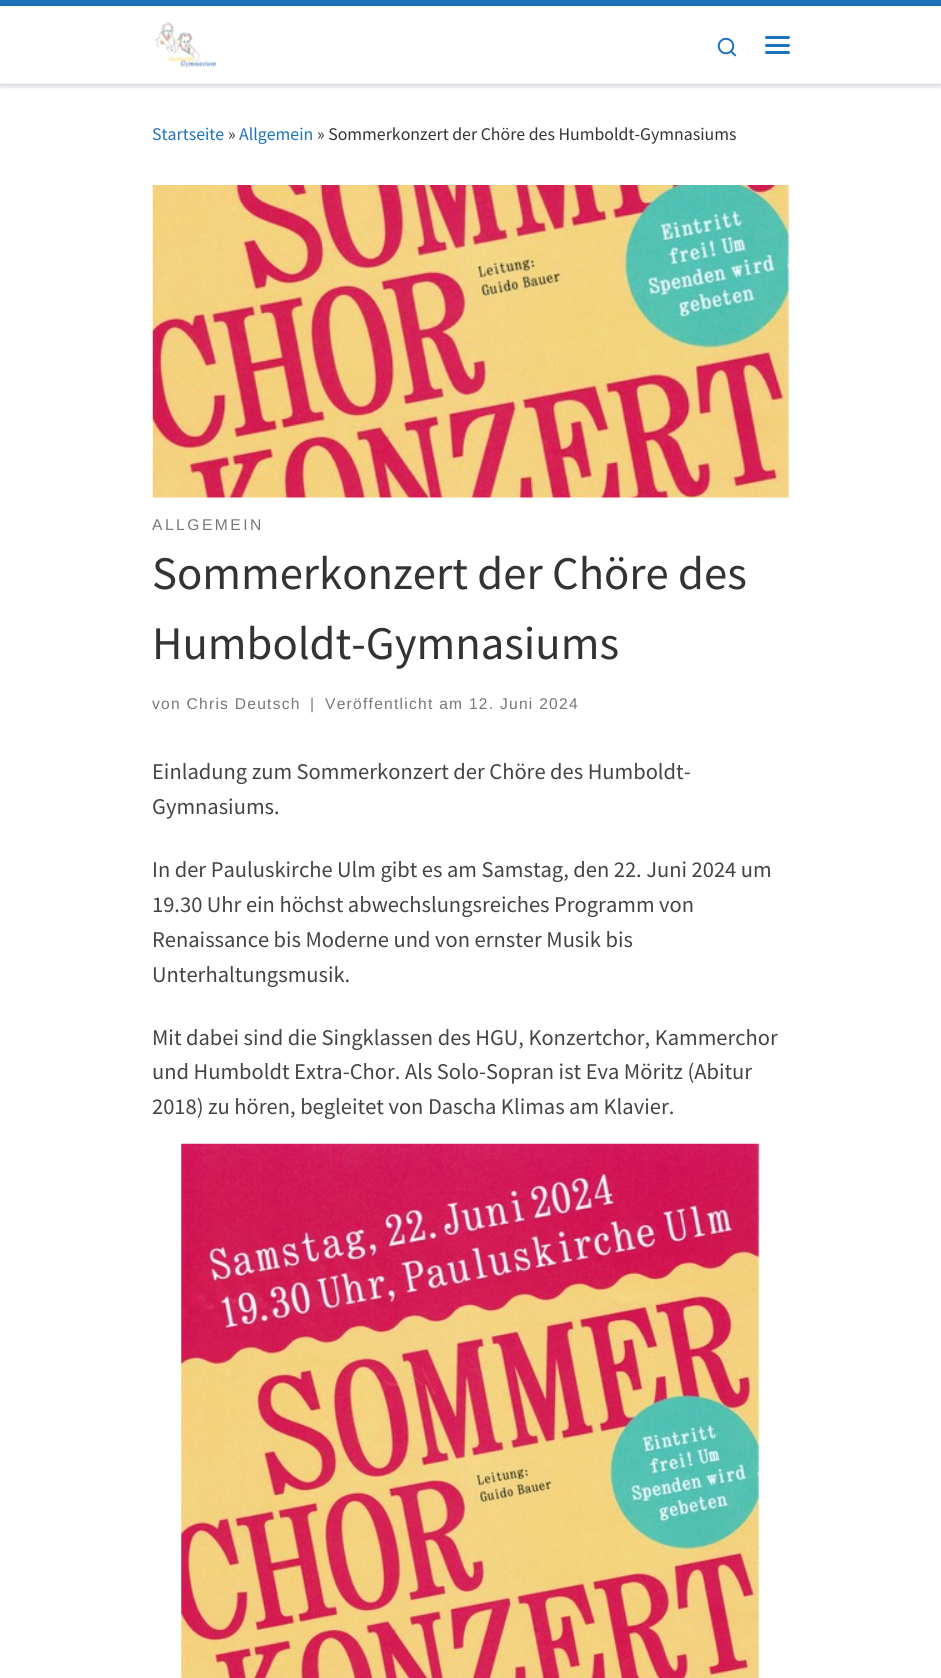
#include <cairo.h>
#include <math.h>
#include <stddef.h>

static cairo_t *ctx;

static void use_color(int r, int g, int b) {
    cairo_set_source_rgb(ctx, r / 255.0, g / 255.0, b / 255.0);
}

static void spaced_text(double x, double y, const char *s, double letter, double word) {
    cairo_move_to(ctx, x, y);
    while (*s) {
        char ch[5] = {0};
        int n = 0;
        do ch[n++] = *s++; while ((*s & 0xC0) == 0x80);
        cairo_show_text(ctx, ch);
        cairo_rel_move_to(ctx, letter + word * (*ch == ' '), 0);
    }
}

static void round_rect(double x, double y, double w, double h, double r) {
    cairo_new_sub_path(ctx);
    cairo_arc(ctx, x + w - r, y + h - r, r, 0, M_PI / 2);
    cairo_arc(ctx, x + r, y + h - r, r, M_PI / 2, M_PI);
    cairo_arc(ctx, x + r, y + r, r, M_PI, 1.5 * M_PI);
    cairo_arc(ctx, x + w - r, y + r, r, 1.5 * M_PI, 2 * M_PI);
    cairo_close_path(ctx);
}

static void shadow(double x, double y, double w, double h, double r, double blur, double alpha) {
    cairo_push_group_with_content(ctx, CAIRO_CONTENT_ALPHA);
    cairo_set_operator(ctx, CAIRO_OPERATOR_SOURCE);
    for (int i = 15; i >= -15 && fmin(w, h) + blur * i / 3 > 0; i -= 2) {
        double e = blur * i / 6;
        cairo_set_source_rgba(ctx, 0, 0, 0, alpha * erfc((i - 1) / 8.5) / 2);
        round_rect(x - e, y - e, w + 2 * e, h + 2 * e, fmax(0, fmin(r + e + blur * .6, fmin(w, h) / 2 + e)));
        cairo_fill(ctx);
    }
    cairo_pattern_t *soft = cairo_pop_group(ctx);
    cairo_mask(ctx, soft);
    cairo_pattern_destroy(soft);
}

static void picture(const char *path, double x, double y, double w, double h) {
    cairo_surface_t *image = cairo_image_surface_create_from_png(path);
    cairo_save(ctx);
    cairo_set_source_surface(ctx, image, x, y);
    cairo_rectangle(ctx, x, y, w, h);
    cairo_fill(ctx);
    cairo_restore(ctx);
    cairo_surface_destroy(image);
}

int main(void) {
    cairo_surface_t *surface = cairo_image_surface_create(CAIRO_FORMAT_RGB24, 941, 1678);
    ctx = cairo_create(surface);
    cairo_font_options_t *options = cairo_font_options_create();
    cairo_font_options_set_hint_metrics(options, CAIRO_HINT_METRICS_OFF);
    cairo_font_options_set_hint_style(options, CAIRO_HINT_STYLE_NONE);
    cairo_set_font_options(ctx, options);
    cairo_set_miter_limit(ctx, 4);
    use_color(255, 255, 255);
    cairo_paint(ctx);
    use_color(102, 102, 102);
    shadow(0, 3, 941, 85, 0, 1, 0.08);
    use_color(30, 115, 190);
    cairo_rectangle(ctx, 0, 0, 941, 6);
    cairo_fill(ctx);
    use_color(238, 244, 250);
    cairo_rectangle(ctx, 0, 84, 941, 1);
    cairo_fill(ctx);
    use_color(0, 0, 0);
    shadow(0, 6, 941, 78, 0, 3, 0.2);
    use_color(255, 255, 255);
    cairo_rectangle(ctx, 0, 6, 941, 77);
    cairo_fill(ctx);
    picture("img1.png", 154, 22, 63, 46);
    picture("img2.png", 717, 37, 20, 20);
    use_color(30, 115, 190);
    round_rect(765, 36, 25, 3, 1.5);
    cairo_fill(ctx);
    round_rect(765, 44, 25, 3, 1.5);
    cairo_fill(ctx);
    round_rect(765, 51, 25, 3, 1.5);
    cairo_fill(ctx);
    use_color(238, 245, 250);
    cairo_rectangle(ctx, 0, 83, 941, 1);
    cairo_fill(ctx);
    cairo_select_font_face(ctx, "Source Sans Pro", CAIRO_FONT_SLANT_NORMAL, CAIRO_FONT_WEIGHT_NORMAL);
    cairo_set_font_size(ctx, 17.8);
    use_color(30, 115, 190);
    cairo_move_to(ctx, 152, 140);
    cairo_show_text(ctx, "Startseite");
    use_color(51, 51, 51);
    cairo_move_to(ctx, 228, 140);
    cairo_show_text(ctx, "»");
    use_color(30, 115, 190);
    cairo_move_to(ctx, 239, 140);
    cairo_show_text(ctx, "Allgemein");
    use_color(51, 51, 51);
    cairo_move_to(ctx, 317, 140);
    cairo_show_text(ctx, "» Sommerkonzert der Chöre des Humboldt-Gymnasiums");
    picture("img3.png", 152, 185, 638, 313);
    cairo_select_font_face(ctx, "Liberation Sans", CAIRO_FONT_SLANT_NORMAL, CAIRO_FONT_WEIGHT_NORMAL);
    cairo_set_font_size(ctx, 15.6);
    use_color(119, 119, 119);
    spaced_text(152, 530, "ALLGEMEIN", 2.5, 0);
    cairo_select_font_face(ctx, "Source Sans Pro", CAIRO_FONT_SLANT_NORMAL, CAIRO_FONT_WEIGHT_NORMAL);
    cairo_set_font_size(ctx, 46.7);
    use_color(51, 51, 51);
    cairo_move_to(ctx, 152, 589);
    cairo_show_text(ctx, "Sommerkonzert der Chöre des");
    cairo_move_to(ctx, 152, 659);
    cairo_show_text(ctx, "Humboldt-Gymnasiums");
    cairo_select_font_face(ctx, "Liberation Sans", CAIRO_FONT_SLANT_NORMAL, CAIRO_FONT_WEIGHT_NORMAL);
    cairo_set_font_size(ctx, 15.6);
    use_color(119, 119, 119);
    spaced_text(152, 709, "von Chris Deutsch", 1.25, 0);
    spaced_text(310, 709, "|", 1.25, 0);
    spaced_text(325, 709, "Veröffentlicht am 12. Juni 2024", 1.25, 0);
    cairo_select_font_face(ctx, "Source Sans Pro", CAIRO_FONT_SLANT_NORMAL, CAIRO_FONT_WEIGHT_NORMAL);
    cairo_set_font_size(ctx, 22.5);
    use_color(68, 68, 68);
    cairo_move_to(ctx, 152, 779);
    cairo_show_text(ctx, "Einladung zum Sommerkonzert der Chöre des Humboldt-");
    cairo_move_to(ctx, 152, 814);
    cairo_show_text(ctx, "Gymnasiums.");
    cairo_move_to(ctx, 152, 877);
    cairo_show_text(ctx, "In der Pauluskirche Ulm gibt es am Samstag, den 22. Juni 2024 um");
    cairo_move_to(ctx, 152, 912);
    cairo_show_text(ctx, "19.30 Uhr ein höchst abwechslungsreiches Programm von");
    cairo_move_to(ctx, 152, 947);
    cairo_show_text(ctx, "Renaissance bis Moderne und von ernster Musik bis");
    cairo_move_to(ctx, 152, 982);
    cairo_show_text(ctx, "Unterhaltungsmusik.");
    cairo_move_to(ctx, 152, 1045);
    cairo_show_text(ctx, "Mit dabei sind die Singklassen des HGU, Konzertchor, Kammerchor");
    cairo_move_to(ctx, 152, 1079);
    cairo_show_text(ctx, "und Humboldt Extra-Chor. Als Solo-Sopran ist Eva Möritz (Abitur");
    cairo_move_to(ctx, 152, 1114);
    cairo_show_text(ctx, "2018) zu hören, begleitet von Dascha Klimas am Klavier.");
    picture("img4.png", 181, 1143, 579, 535);
    cairo_surface_write_to_png(surface, "result.png");
    cairo_font_options_destroy(options);
    cairo_destroy(ctx);
    cairo_surface_destroy(surface);
    return 0;
}
